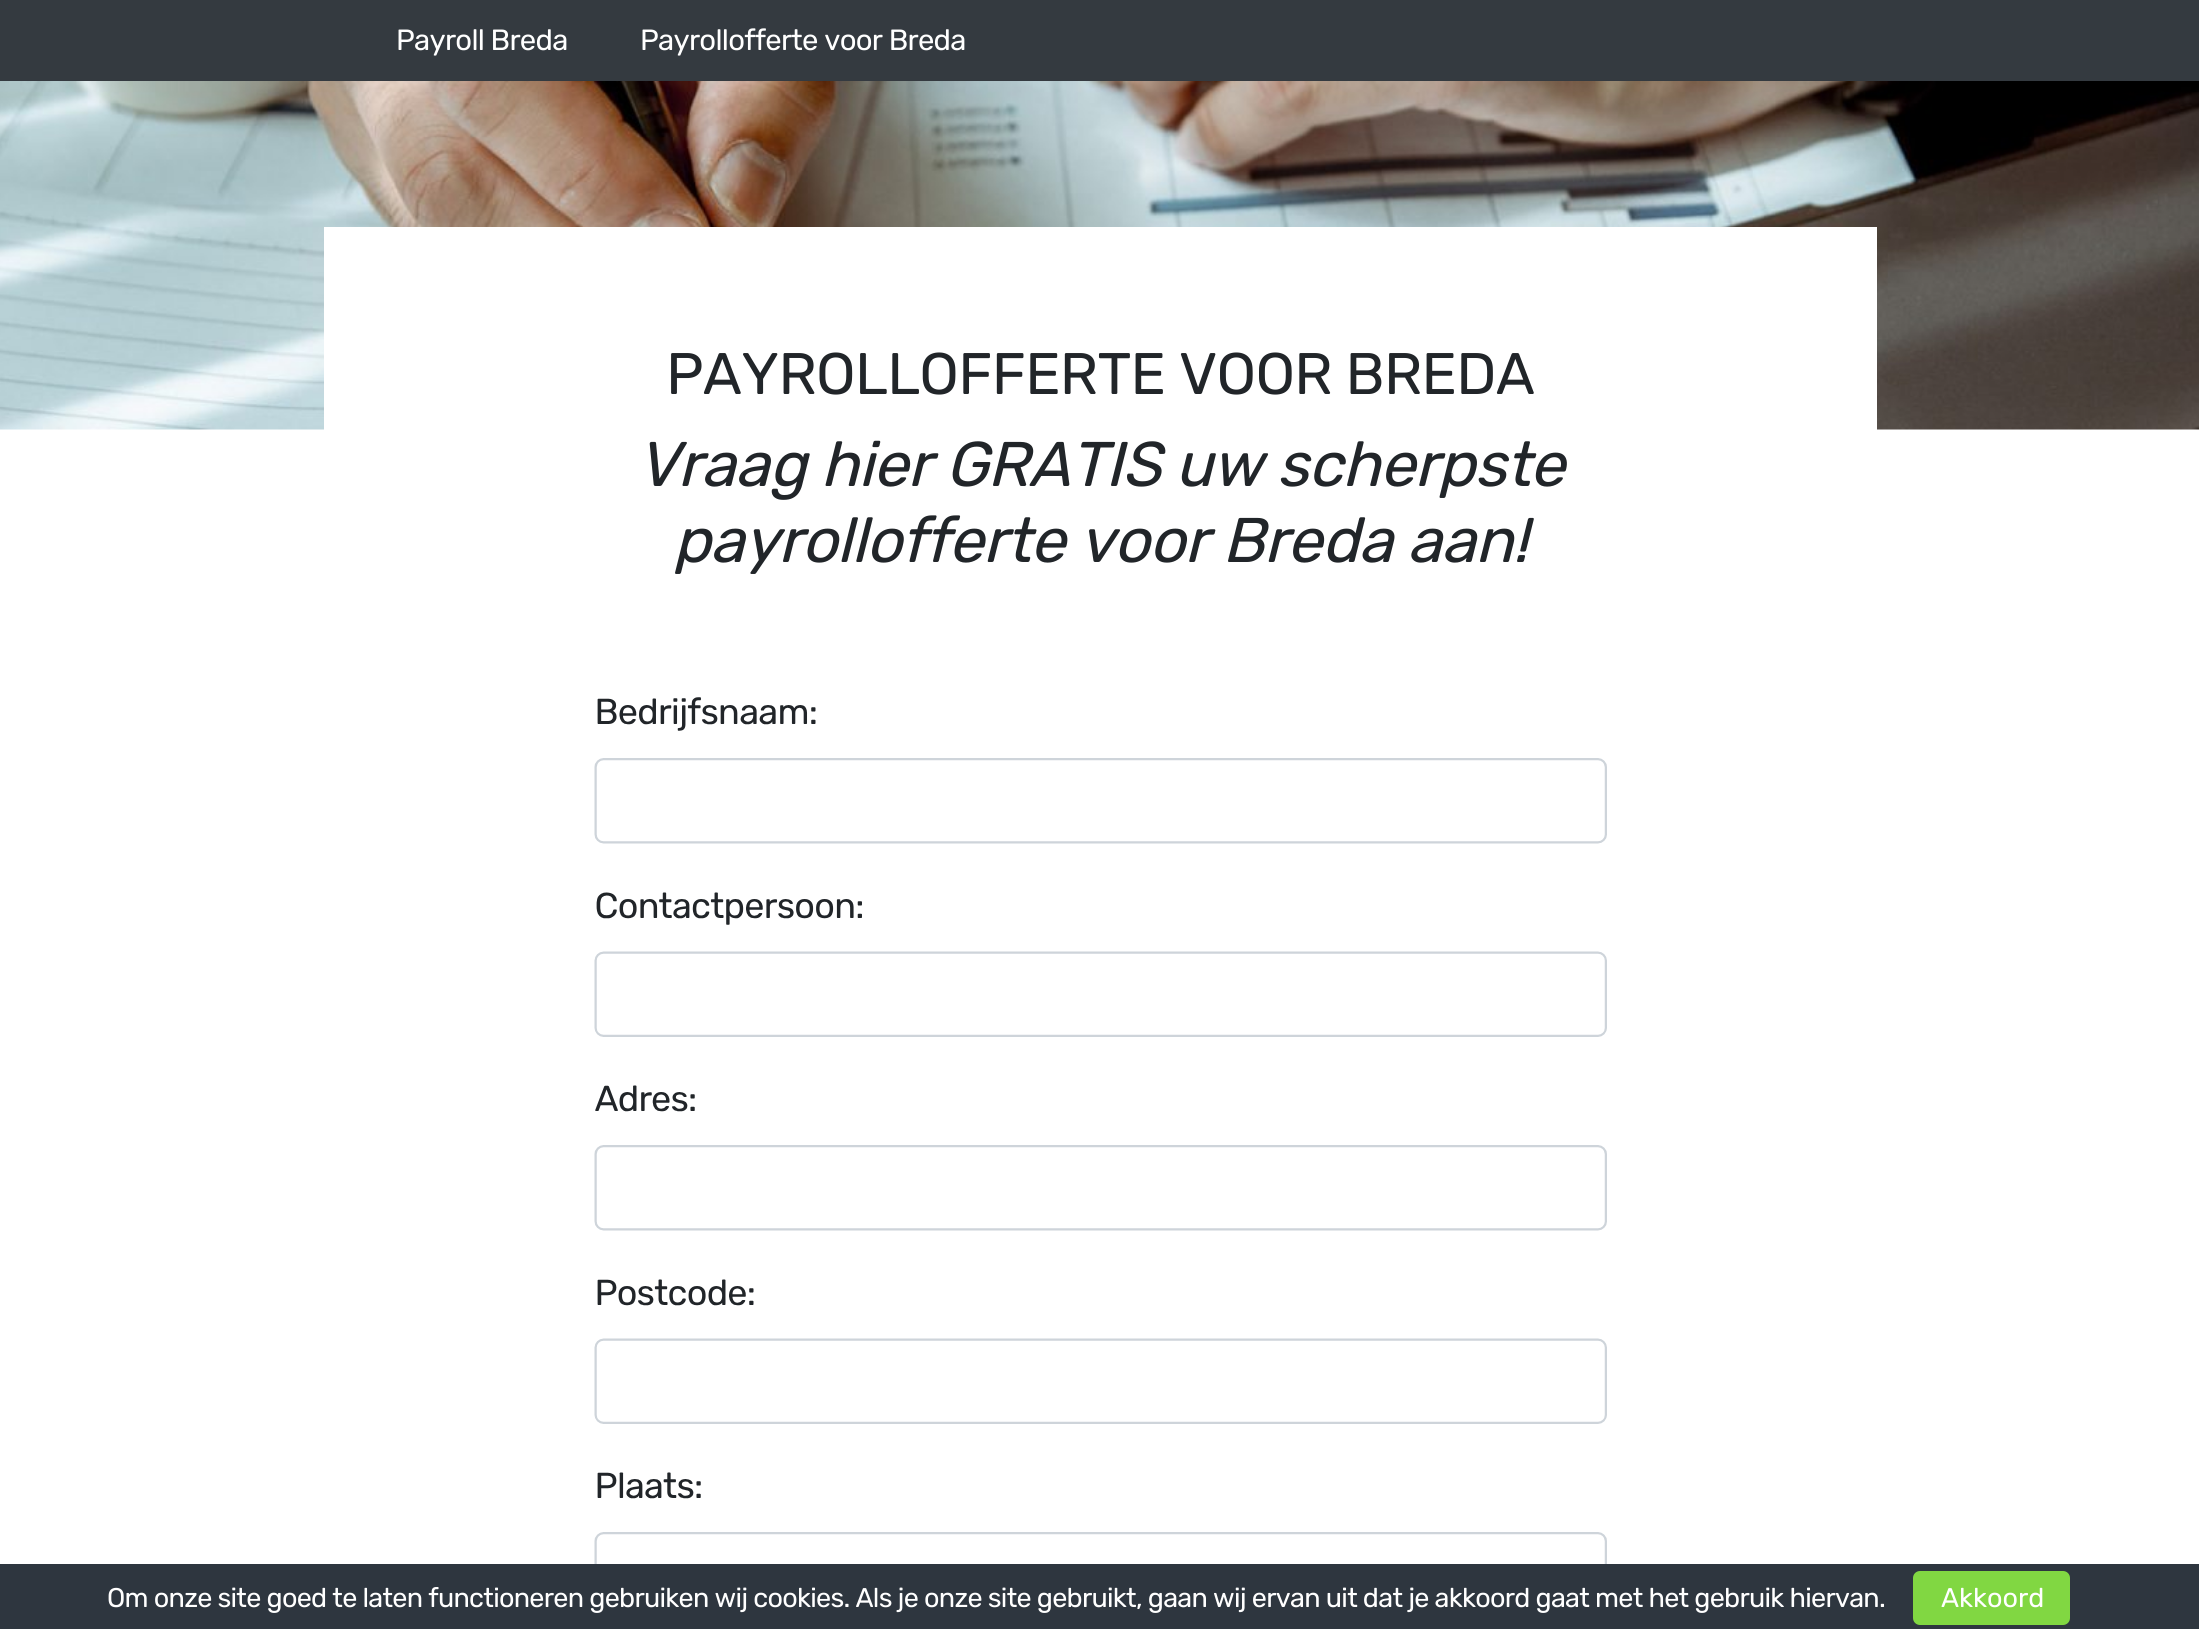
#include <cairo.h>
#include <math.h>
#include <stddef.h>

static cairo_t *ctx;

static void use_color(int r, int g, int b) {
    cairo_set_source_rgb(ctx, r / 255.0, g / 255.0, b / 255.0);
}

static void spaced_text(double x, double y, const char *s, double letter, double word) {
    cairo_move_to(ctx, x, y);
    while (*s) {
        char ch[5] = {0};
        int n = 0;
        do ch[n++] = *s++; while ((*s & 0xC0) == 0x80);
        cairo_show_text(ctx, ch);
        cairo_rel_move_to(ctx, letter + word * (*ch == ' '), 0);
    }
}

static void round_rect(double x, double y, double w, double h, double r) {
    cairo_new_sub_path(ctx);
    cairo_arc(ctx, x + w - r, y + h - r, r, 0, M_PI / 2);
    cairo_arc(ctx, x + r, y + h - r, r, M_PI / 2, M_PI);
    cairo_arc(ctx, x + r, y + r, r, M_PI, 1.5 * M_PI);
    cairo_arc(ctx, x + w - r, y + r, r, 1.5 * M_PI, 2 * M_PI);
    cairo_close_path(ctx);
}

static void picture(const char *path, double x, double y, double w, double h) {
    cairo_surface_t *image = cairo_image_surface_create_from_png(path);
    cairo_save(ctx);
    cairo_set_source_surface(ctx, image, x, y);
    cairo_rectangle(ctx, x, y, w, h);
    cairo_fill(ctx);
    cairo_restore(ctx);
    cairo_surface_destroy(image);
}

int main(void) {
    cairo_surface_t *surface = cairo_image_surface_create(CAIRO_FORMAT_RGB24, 2199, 1629);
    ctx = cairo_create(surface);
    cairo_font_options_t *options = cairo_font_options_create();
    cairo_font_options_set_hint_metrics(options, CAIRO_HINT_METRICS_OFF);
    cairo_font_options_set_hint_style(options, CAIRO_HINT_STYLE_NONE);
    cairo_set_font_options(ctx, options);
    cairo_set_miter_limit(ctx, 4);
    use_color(255, 255, 255);
    cairo_paint(ctx);
    use_color(52, 58, 64);
    cairo_rectangle(ctx, 0, 0, 2199, 81);
    cairo_fill(ctx);
    cairo_select_font_face(ctx, "Rubik", CAIRO_FONT_SLANT_NORMAL, CAIRO_FONT_WEIGHT_NORMAL);
    cairo_set_font_size(ctx, 29.25);
    use_color(255, 255, 255);
    spaced_text(396, 50, "Payroll Breda", -0.72, 0);
    spaced_text(640, 50, "Payrollofferte voor Breda", -0.72, 0);
    picture("img1.png", 0, 81, 2199, 349);
    cairo_rectangle(ctx, 324, 227, 1553, 203);
    cairo_fill(ctx);
    cairo_set_font_size(ctx, 58.5);
    use_color(33, 37, 41);
    spaced_text(666, 394, "PAYROLLOFFERTE VOOR BREDA", -0.72, 0);
    cairo_select_font_face(ctx, "Rubik", CAIRO_FONT_SLANT_ITALIC, CAIRO_FONT_WEIGHT_NORMAL);
    cairo_set_font_size(ctx, 63);
    spaced_text(637, 486, "Vraag hier GRATIS uw scherpste", -0.72, 0);
    spaced_text(673, 562, "payrollofferte voor Breda aan!", -0.72, 0);
    picture("img2.png", 594, 697, 1013, 867);
    use_color(46, 54, 63);
    cairo_rectangle(ctx, 0, 1564, 2199, 65);
    cairo_fill(ctx);
    cairo_select_font_face(ctx, "Rubik", CAIRO_FONT_SLANT_NORMAL, CAIRO_FONT_WEIGHT_NORMAL);
    cairo_set_font_size(ctx, 27);
    use_color(255, 255, 255);
    spaced_text(107, 1607, "Om onze site goed te laten functioneren gebruiken wij cookies. Als je onze site gebruikt, gaan wij ervan uit dat je akkoord gaat met het gebruik hiervan.", -0.72, 0);
    use_color(129, 215, 66);
    round_rect(1913, 1571, 157, 54, 7);
    cairo_fill(ctx);
    use_color(255, 255, 255);
    cairo_move_to(ctx, 1941, 1607);
    cairo_show_text(ctx, "Akkoord");
    cairo_surface_write_to_png(surface, "result.png");
    cairo_font_options_destroy(options);
    cairo_destroy(ctx);
    cairo_surface_destroy(surface);
    return 0;
}
